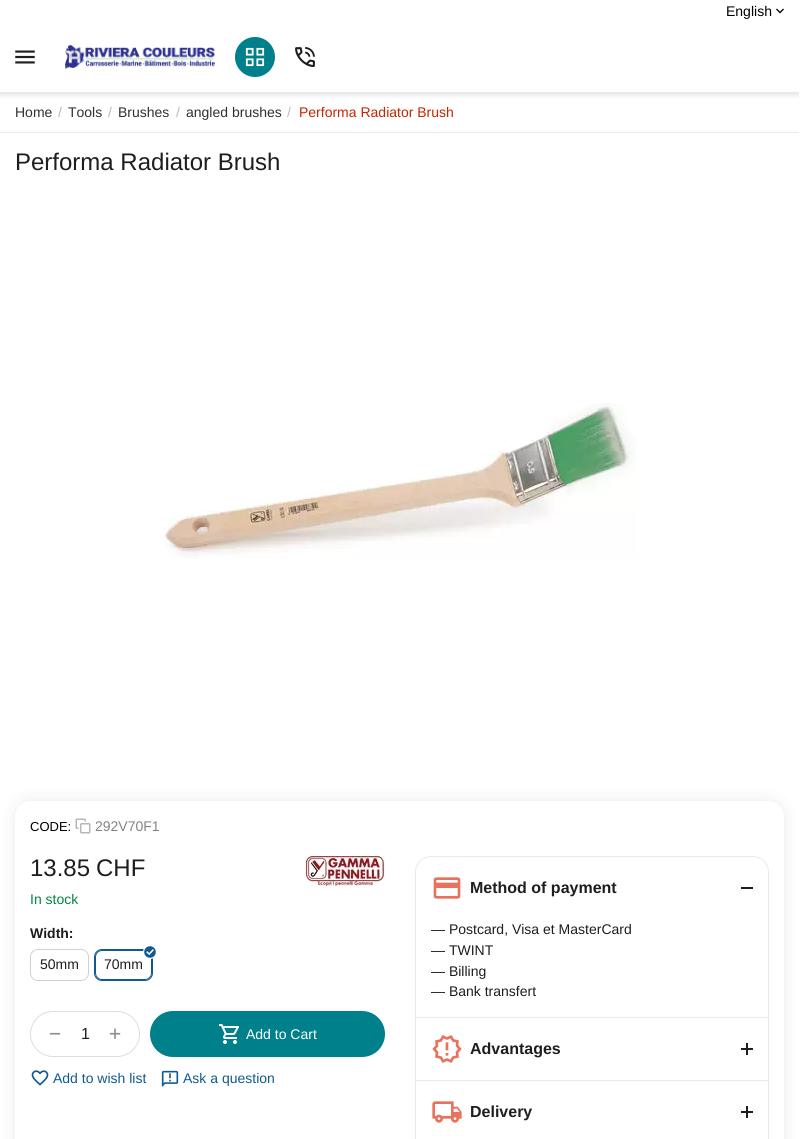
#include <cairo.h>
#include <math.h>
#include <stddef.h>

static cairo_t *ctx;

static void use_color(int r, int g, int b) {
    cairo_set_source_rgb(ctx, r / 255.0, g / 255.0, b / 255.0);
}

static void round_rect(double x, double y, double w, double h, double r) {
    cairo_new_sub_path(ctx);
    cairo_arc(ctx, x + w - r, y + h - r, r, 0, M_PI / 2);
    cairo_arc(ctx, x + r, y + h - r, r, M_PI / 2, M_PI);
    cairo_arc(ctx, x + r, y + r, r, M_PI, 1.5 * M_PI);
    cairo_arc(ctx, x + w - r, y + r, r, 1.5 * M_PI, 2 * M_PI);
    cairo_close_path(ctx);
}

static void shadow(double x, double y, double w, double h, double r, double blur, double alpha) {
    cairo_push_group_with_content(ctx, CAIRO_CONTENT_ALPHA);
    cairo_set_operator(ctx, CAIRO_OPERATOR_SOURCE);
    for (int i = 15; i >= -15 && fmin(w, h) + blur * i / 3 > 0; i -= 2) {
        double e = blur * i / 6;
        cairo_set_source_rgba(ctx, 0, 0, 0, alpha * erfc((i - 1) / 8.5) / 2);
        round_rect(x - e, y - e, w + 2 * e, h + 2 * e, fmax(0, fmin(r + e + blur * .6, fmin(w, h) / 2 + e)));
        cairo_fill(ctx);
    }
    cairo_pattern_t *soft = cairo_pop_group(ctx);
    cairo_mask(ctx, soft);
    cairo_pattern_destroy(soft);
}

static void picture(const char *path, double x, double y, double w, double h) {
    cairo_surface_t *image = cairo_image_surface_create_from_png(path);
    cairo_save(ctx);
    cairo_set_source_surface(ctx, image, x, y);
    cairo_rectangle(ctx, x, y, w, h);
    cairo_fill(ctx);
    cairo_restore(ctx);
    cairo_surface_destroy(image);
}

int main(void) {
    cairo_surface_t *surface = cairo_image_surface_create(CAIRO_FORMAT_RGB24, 807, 1139);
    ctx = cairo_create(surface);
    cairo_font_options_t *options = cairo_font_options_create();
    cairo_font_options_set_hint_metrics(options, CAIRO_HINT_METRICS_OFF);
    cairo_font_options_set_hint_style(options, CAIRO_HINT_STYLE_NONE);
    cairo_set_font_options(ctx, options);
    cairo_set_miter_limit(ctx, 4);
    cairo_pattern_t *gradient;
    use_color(255, 255, 255);
    cairo_paint(ctx);
    cairo_select_font_face(ctx, "Liberation Sans", CAIRO_FONT_SLANT_NORMAL, CAIRO_FONT_WEIGHT_NORMAL);
    cairo_set_font_size(ctx, 14);
    use_color(0, 0, 0);
    cairo_move_to(ctx, 726, 16);
    cairo_show_text(ctx, "English");
    picture("img1.png", 776, 8, 8, 6);
    picture("img2.png", 15, 50, 20, 14);
    picture("img3.png", 65, 45, 150, 24);
    use_color(0, 128, 138);
    cairo_arc(ctx, 255, 57, 20, 0, 2 * M_PI);
    cairo_fill(ctx);
    picture("img4.png", 245, 47, 20, 20);
    picture("img5.png", 295, 47, 20, 20);
    gradient = cairo_pattern_create_linear(400, 92, 400, 99);
    cairo_pattern_add_color_stop_rgba(gradient, 0, 0.902, 0.902, 0.902, 1);
    cairo_pattern_add_color_stop_rgba(gradient, 1, 1, 1, 1, 1);
    cairo_set_source(ctx, gradient);
    cairo_pattern_destroy(gradient);
    cairo_rectangle(ctx, 0, 92, 799, 6);
    cairo_fill(ctx);
    use_color(234, 234, 234);
    cairo_rectangle(ctx, 0, 132, 799, 1);
    cairo_fill(ctx);
    use_color(48, 48, 48);
    cairo_move_to(ctx, 15, 117);
    cairo_show_text(ctx, "Home");
    use_color(183, 183, 183);
    cairo_move_to(ctx, 58, 117);
    cairo_show_text(ctx, "/");
    use_color(48, 48, 48);
    cairo_move_to(ctx, 68, 117);
    cairo_show_text(ctx, "Tools");
    use_color(183, 183, 183);
    cairo_move_to(ctx, 108, 117);
    cairo_show_text(ctx, "/");
    use_color(48, 48, 48);
    cairo_move_to(ctx, 118, 117);
    cairo_show_text(ctx, "Brushes");
    use_color(183, 183, 183);
    cairo_move_to(ctx, 176, 117);
    cairo_show_text(ctx, "/");
    use_color(48, 48, 48);
    cairo_move_to(ctx, 186, 117);
    cairo_show_text(ctx, "angled brushes");
    use_color(183, 183, 183);
    cairo_move_to(ctx, 287, 117);
    cairo_show_text(ctx, "/");
    use_color(197, 37, 0);
    cairo_move_to(ctx, 299, 117);
    cairo_show_text(ctx, "Performa Radiator Brush");
    cairo_set_font_size(ctx, 24);
    use_color(30, 30, 30);
    cairo_move_to(ctx, 15, 170);
    cairo_show_text(ctx, "Performa Radiator Brush");
    picture("img6.png", 163, 403, 474, 156);
    use_color(30, 30, 30);
    shadow(15, 801, 769, 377, 16, 7.5, 0.1);
    use_color(255, 255, 255);
    round_rect(15, 801, 769, 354, 16);
    cairo_fill(ctx);
    cairo_set_font_size(ctx, 13);
    use_color(0, 0, 0);
    cairo_move_to(ctx, 30, 831);
    cairo_show_text(ctx, "CODE:");
    picture("img7.png", 75, 818, 16, 16);
    cairo_set_font_size(ctx, 14);
    use_color(132, 132, 132);
    cairo_move_to(ctx, 95, 831);
    cairo_show_text(ctx, "292V70F1");
    cairo_set_font_size(ctx, 24);
    use_color(30, 30, 30);
    cairo_move_to(ctx, 30, 876);
    cairo_show_text(ctx, "13.85");
    cairo_move_to(ctx, 96, 876);
    cairo_show_text(ctx, "CHF");
    picture("img8.png", 305, 856, 80, 30);
    cairo_set_font_size(ctx, 14);
    use_color(0, 134, 65);
    cairo_move_to(ctx, 30, 904);
    cairo_show_text(ctx, "In stock");
    cairo_select_font_face(ctx, "Liberation Sans", CAIRO_FONT_SLANT_NORMAL, CAIRO_FONT_WEIGHT_BOLD);
    use_color(30, 30, 30);
    cairo_move_to(ctx, 30, 938);
    cairo_show_text(ctx, "Width:");
    round_rect(30.5, 949.5, 58, 31, 7.5);
    use_color(209, 209, 209);
    cairo_set_line_width(ctx, 1);
    cairo_stroke(ctx);
    cairo_select_font_face(ctx, "Liberation Sans", CAIRO_FONT_SLANT_NORMAL, CAIRO_FONT_WEIGHT_NORMAL);
    use_color(30, 30, 30);
    cairo_move_to(ctx, 40, 969);
    cairo_show_text(ctx, "50mm");
    round_rect(95.5, 950.5, 56, 29, 6.5);
    use_color(16, 89, 144);
    cairo_stroke(ctx);
    round_rect(94.5, 949.5, 58, 31, 7.5);
    cairo_stroke(ctx);
    use_color(255, 255, 255);
    cairo_arc(ctx, 150, 952, 7, 0, 2 * M_PI);
    cairo_fill(ctx);
    picture("img9.png", 144, 946, 12, 12);
    use_color(30, 30, 30);
    cairo_move_to(ctx, 104, 969);
    cairo_show_text(ctx, "70mm");
    round_rect(30.5, 1011.5, 109, 45, 22.5);
    use_color(221, 221, 221);
    cairo_stroke(ctx);
    cairo_select_font_face(ctx, "DejaVu Sans Mono", CAIRO_FONT_SLANT_NORMAL, CAIRO_FONT_WEIGHT_NORMAL);
    cairo_set_font_size(ctx, 20);
    use_color(143, 143, 143);
    cairo_move_to(ctx, 49, 1040);
    cairo_show_text(ctx, "−");
    cairo_select_font_face(ctx, "Liberation Sans", CAIRO_FONT_SLANT_NORMAL, CAIRO_FONT_WEIGHT_NORMAL);
    cairo_set_font_size(ctx, 16);
    use_color(30, 30, 30);
    cairo_move_to(ctx, 81, 1039);
    cairo_show_text(ctx, "1");
    cairo_select_font_face(ctx, "DejaVu Sans Mono", CAIRO_FONT_SLANT_NORMAL, CAIRO_FONT_WEIGHT_NORMAL);
    cairo_set_font_size(ctx, 20);
    use_color(143, 143, 143);
    cairo_move_to(ctx, 109, 1040);
    cairo_show_text(ctx, "+");
    use_color(0, 128, 138);
    round_rect(150, 1011, 235, 46, 23);
    cairo_fill(ctx);
    picture("img10.png", 219, 1024, 20, 20);
    cairo_select_font_face(ctx, "Liberation Sans", CAIRO_FONT_SLANT_NORMAL, CAIRO_FONT_WEIGHT_NORMAL);
    cairo_set_font_size(ctx, 14);
    use_color(255, 255, 255);
    cairo_move_to(ctx, 246, 1039);
    cairo_show_text(ctx, "Add to Cart");
    picture("img11.png", 31, 1070, 18, 16);
    use_color(16, 89, 144);
    cairo_move_to(ctx, 53, 1083);
    cairo_show_text(ctx, "Add to wish list");
    picture("img12.png", 161, 1070, 18, 17);
    cairo_move_to(ctx, 183, 1083);
    cairo_show_text(ctx, "Ask a question");
    round_rect(415.5, 856.5, 353, 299, 15.5);
    use_color(234, 234, 234);
    cairo_stroke(ctx);
    cairo_rectangle(ctx, 416, 1017, 352, 1);
    cairo_fill(ctx);
    picture("img13.png", 433, 877, 28, 22);
    cairo_select_font_face(ctx, "Liberation Sans", CAIRO_FONT_SLANT_NORMAL, CAIRO_FONT_WEIGHT_BOLD);
    cairo_set_font_size(ctx, 16);
    use_color(30, 30, 30);
    cairo_move_to(ctx, 470, 893);
    cairo_show_text(ctx, "Method of payment");
    cairo_rectangle(ctx, 741, 887, 12, 2);
    cairo_fill(ctx);
    cairo_select_font_face(ctx, "Liberation Sans", CAIRO_FONT_SLANT_NORMAL, CAIRO_FONT_WEIGHT_NORMAL);
    cairo_set_font_size(ctx, 14);
    cairo_move_to(ctx, 431, 934);
    cairo_show_text(ctx, "— Postcard, Visa et MasterCard");
    cairo_move_to(ctx, 431, 955);
    cairo_show_text(ctx, "— TWINT");
    cairo_move_to(ctx, 431, 976);
    cairo_show_text(ctx, "— Billing");
    cairo_move_to(ctx, 431, 996);
    cairo_show_text(ctx, "— Bank transfert");
    use_color(234, 234, 234);
    cairo_rectangle(ctx, 416, 1080, 352, 1);
    cairo_fill(ctx);
    picture("img14.png", 432, 1035, 30, 28);
    cairo_select_font_face(ctx, "Liberation Sans", CAIRO_FONT_SLANT_NORMAL, CAIRO_FONT_WEIGHT_BOLD);
    cairo_set_font_size(ctx, 16);
    use_color(30, 30, 30);
    cairo_move_to(ctx, 470, 1054);
    cairo_show_text(ctx, "Advantages");
    cairo_rectangle(ctx, 746, 1043, 2, 12);
    cairo_fill(ctx);
    cairo_rectangle(ctx, 741, 1048, 12, 2);
    cairo_fill(ctx);
    picture("img15.png", 432, 1101, 30, 22);
    cairo_move_to(ctx, 470, 1117);
    cairo_show_text(ctx, "Delivery");
    cairo_rectangle(ctx, 746, 1106, 2, 12);
    cairo_fill(ctx);
    cairo_rectangle(ctx, 741, 1111, 12, 2);
    cairo_fill(ctx);
    cairo_surface_write_to_png(surface, "result.png");
    cairo_font_options_destroy(options);
    cairo_destroy(ctx);
    cairo_surface_destroy(surface);
    return 0;
}
